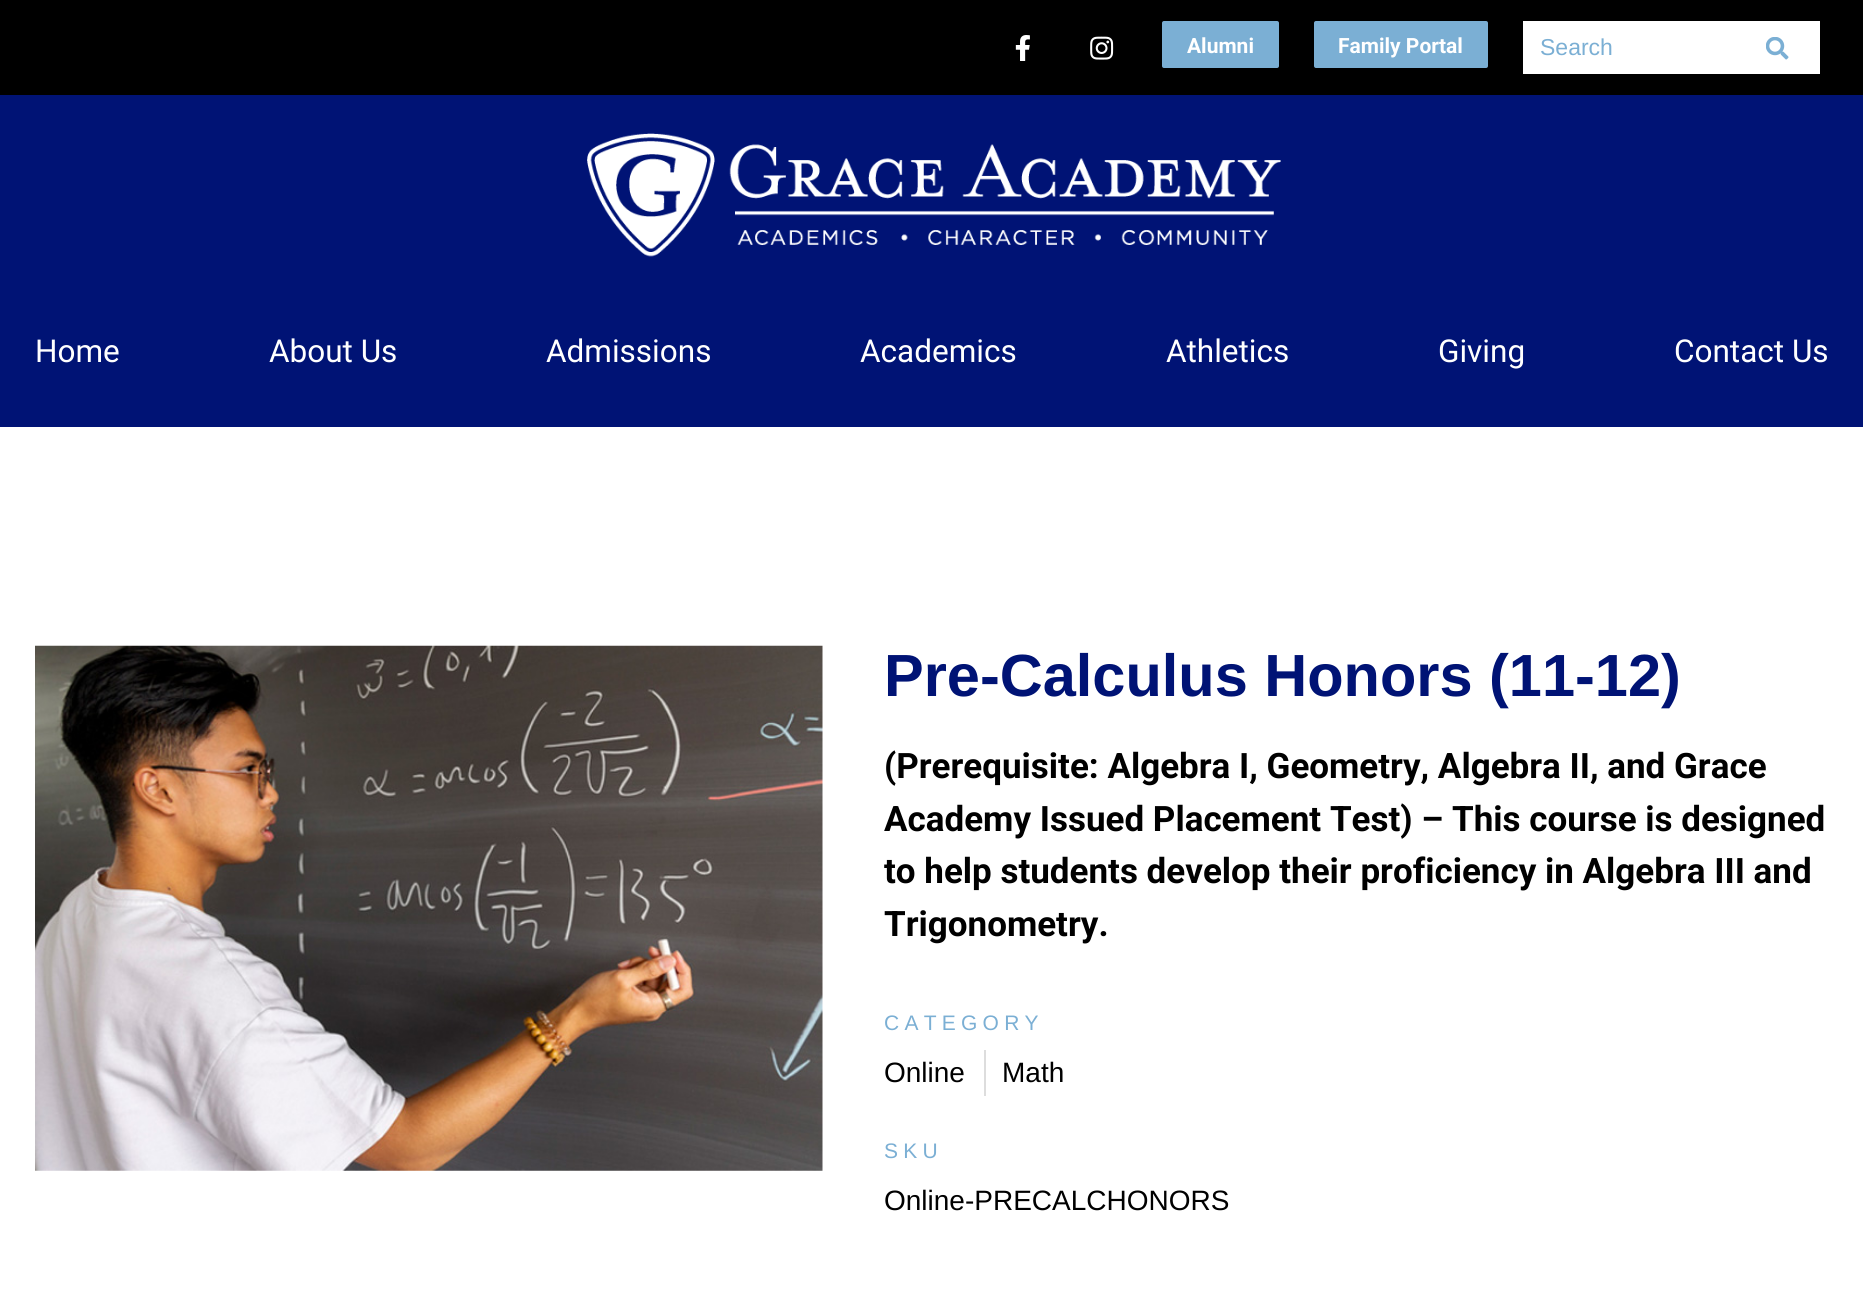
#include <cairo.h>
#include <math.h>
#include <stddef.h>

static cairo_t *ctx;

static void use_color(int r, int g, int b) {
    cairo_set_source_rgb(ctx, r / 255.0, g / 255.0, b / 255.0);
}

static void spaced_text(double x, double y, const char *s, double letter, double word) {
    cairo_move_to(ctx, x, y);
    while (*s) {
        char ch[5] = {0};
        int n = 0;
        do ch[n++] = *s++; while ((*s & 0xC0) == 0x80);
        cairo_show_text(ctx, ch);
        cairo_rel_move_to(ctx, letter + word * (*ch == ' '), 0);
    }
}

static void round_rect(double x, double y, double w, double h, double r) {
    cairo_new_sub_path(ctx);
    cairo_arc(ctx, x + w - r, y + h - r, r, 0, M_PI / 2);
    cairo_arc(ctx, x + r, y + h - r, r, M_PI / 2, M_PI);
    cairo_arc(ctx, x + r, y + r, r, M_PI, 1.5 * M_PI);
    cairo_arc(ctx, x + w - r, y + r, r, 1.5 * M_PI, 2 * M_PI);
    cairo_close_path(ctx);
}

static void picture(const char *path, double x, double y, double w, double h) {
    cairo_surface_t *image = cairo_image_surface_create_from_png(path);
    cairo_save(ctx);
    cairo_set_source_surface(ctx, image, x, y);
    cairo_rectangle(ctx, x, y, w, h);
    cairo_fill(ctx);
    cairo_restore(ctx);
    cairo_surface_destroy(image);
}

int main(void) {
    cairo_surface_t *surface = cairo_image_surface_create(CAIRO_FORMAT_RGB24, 1863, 1307);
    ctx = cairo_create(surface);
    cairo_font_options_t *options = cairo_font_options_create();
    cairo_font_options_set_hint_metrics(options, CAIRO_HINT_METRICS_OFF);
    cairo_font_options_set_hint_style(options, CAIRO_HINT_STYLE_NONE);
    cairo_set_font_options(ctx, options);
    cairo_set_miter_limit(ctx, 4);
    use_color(255, 255, 255);
    cairo_paint(ctx);
    use_color(0, 0, 0);
    cairo_rectangle(ctx, 0, 0, 1863, 95);
    cairo_fill(ctx);
    picture("img1.png", 1015, 35, 15, 26);
    picture("img2.png", 1090, 36, 24, 24);
    use_color(123, 175, 212);
    round_rect(1162, 21, 117, 47, 2);
    cairo_fill(ctx);
    cairo_select_font_face(ctx, "Roboto", CAIRO_FONT_SLANT_NORMAL, CAIRO_FONT_WEIGHT_BOLD);
    cairo_set_font_size(ctx, 21);
    use_color(255, 255, 255);
    cairo_move_to(ctx, 1187, 53);
    cairo_show_text(ctx, "Alumni");
    use_color(123, 175, 212);
    round_rect(1314, 21, 174, 47, 2);
    cairo_fill(ctx);
    use_color(255, 255, 255);
    cairo_move_to(ctx, 1338, 53);
    cairo_show_text(ctx, "Family Portal");
    cairo_rectangle(ctx, 1523, 21, 297, 53);
    cairo_fill(ctx);
    cairo_select_font_face(ctx, "Liberation Sans", CAIRO_FONT_SLANT_NORMAL, CAIRO_FONT_WEIGHT_NORMAL);
    cairo_set_font_size(ctx, 23);
    use_color(123, 175, 212);
    cairo_move_to(ctx, 1540, 55);
    cairo_show_text(ctx, "Search");
    picture("img3.png", 1766, 37, 23, 23);
    use_color(0, 19, 117);
    cairo_rectangle(ctx, 0, 95, 1863, 332);
    cairo_fill(ctx);
    picture("img4.png", 587, 133, 694, 124);
    cairo_select_font_face(ctx, "Roboto", CAIRO_FONT_SLANT_NORMAL, CAIRO_FONT_WEIGHT_NORMAL);
    cairo_set_font_size(ctx, 31.5);
    use_color(255, 255, 255);
    cairo_move_to(ctx, 35, 362);
    cairo_show_text(ctx, "Home");
    cairo_move_to(ctx, 269, 362);
    cairo_show_text(ctx, "About Us");
    cairo_move_to(ctx, 546, 362);
    cairo_show_text(ctx, "Admissions");
    cairo_move_to(ctx, 860, 362);
    cairo_show_text(ctx, "Academics");
    cairo_move_to(ctx, 1166, 362);
    cairo_show_text(ctx, "Athletics");
    cairo_move_to(ctx, 1438, 362);
    cairo_show_text(ctx, "Giving");
    cairo_move_to(ctx, 1674, 362);
    cairo_show_text(ctx, "Contact Us");
    picture("img5.png", 35, 645, 788, 526);
    cairo_select_font_face(ctx, "Liberation Sans", CAIRO_FONT_SLANT_NORMAL, CAIRO_FONT_WEIGHT_BOLD);
    cairo_set_font_size(ctx, 59.5);
    use_color(0, 19, 117);
    cairo_move_to(ctx, 884, 696);
    cairo_show_text(ctx, "Pre-Calculus Honors (11-12)");
    cairo_select_font_face(ctx, "Roboto", CAIRO_FONT_SLANT_NORMAL, CAIRO_FONT_WEIGHT_BOLD);
    cairo_set_font_size(ctx, 35);
    use_color(0, 0, 0);
    cairo_move_to(ctx, 884, 778);
    cairo_show_text(ctx, "(Prerequisite: Algebra I, Geometry, Algebra II, and Grace");
    cairo_move_to(ctx, 884, 831);
    cairo_show_text(ctx, "Academy Issued Placement Test) – This course is designed");
    cairo_move_to(ctx, 884, 883);
    cairo_show_text(ctx, "to help students develop their proficiency in Algebra III and");
    cairo_move_to(ctx, 884, 936);
    cairo_show_text(ctx, "Trigonometry.");
    cairo_select_font_face(ctx, "Liberation Sans", CAIRO_FONT_SLANT_NORMAL, CAIRO_FONT_WEIGHT_NORMAL);
    cairo_set_font_size(ctx, 21);
    use_color(123, 175, 212);
    spaced_text(884, 1030, "CATEGORY", 5.25, 0);
    cairo_set_font_size(ctx, 28);
    use_color(0, 0, 0);
    cairo_move_to(ctx, 884, 1082);
    cairo_show_text(ctx, "Online");
    use_color(221, 221, 221);
    cairo_rectangle(ctx, 984, 1050, 2, 46);
    cairo_fill(ctx);
    use_color(0, 0, 0);
    cairo_move_to(ctx, 1002, 1082);
    cairo_show_text(ctx, "Math");
    cairo_set_font_size(ctx, 21);
    use_color(123, 175, 212);
    spaced_text(884, 1158, "SKU", 5.25, 0);
    cairo_set_font_size(ctx, 28);
    use_color(0, 0, 0);
    cairo_move_to(ctx, 884, 1210);
    cairo_show_text(ctx, "Online-PRECALCHONORS");
    cairo_surface_write_to_png(surface, "result.png");
    cairo_font_options_destroy(options);
    cairo_destroy(ctx);
    cairo_surface_destroy(surface);
    return 0;
}
